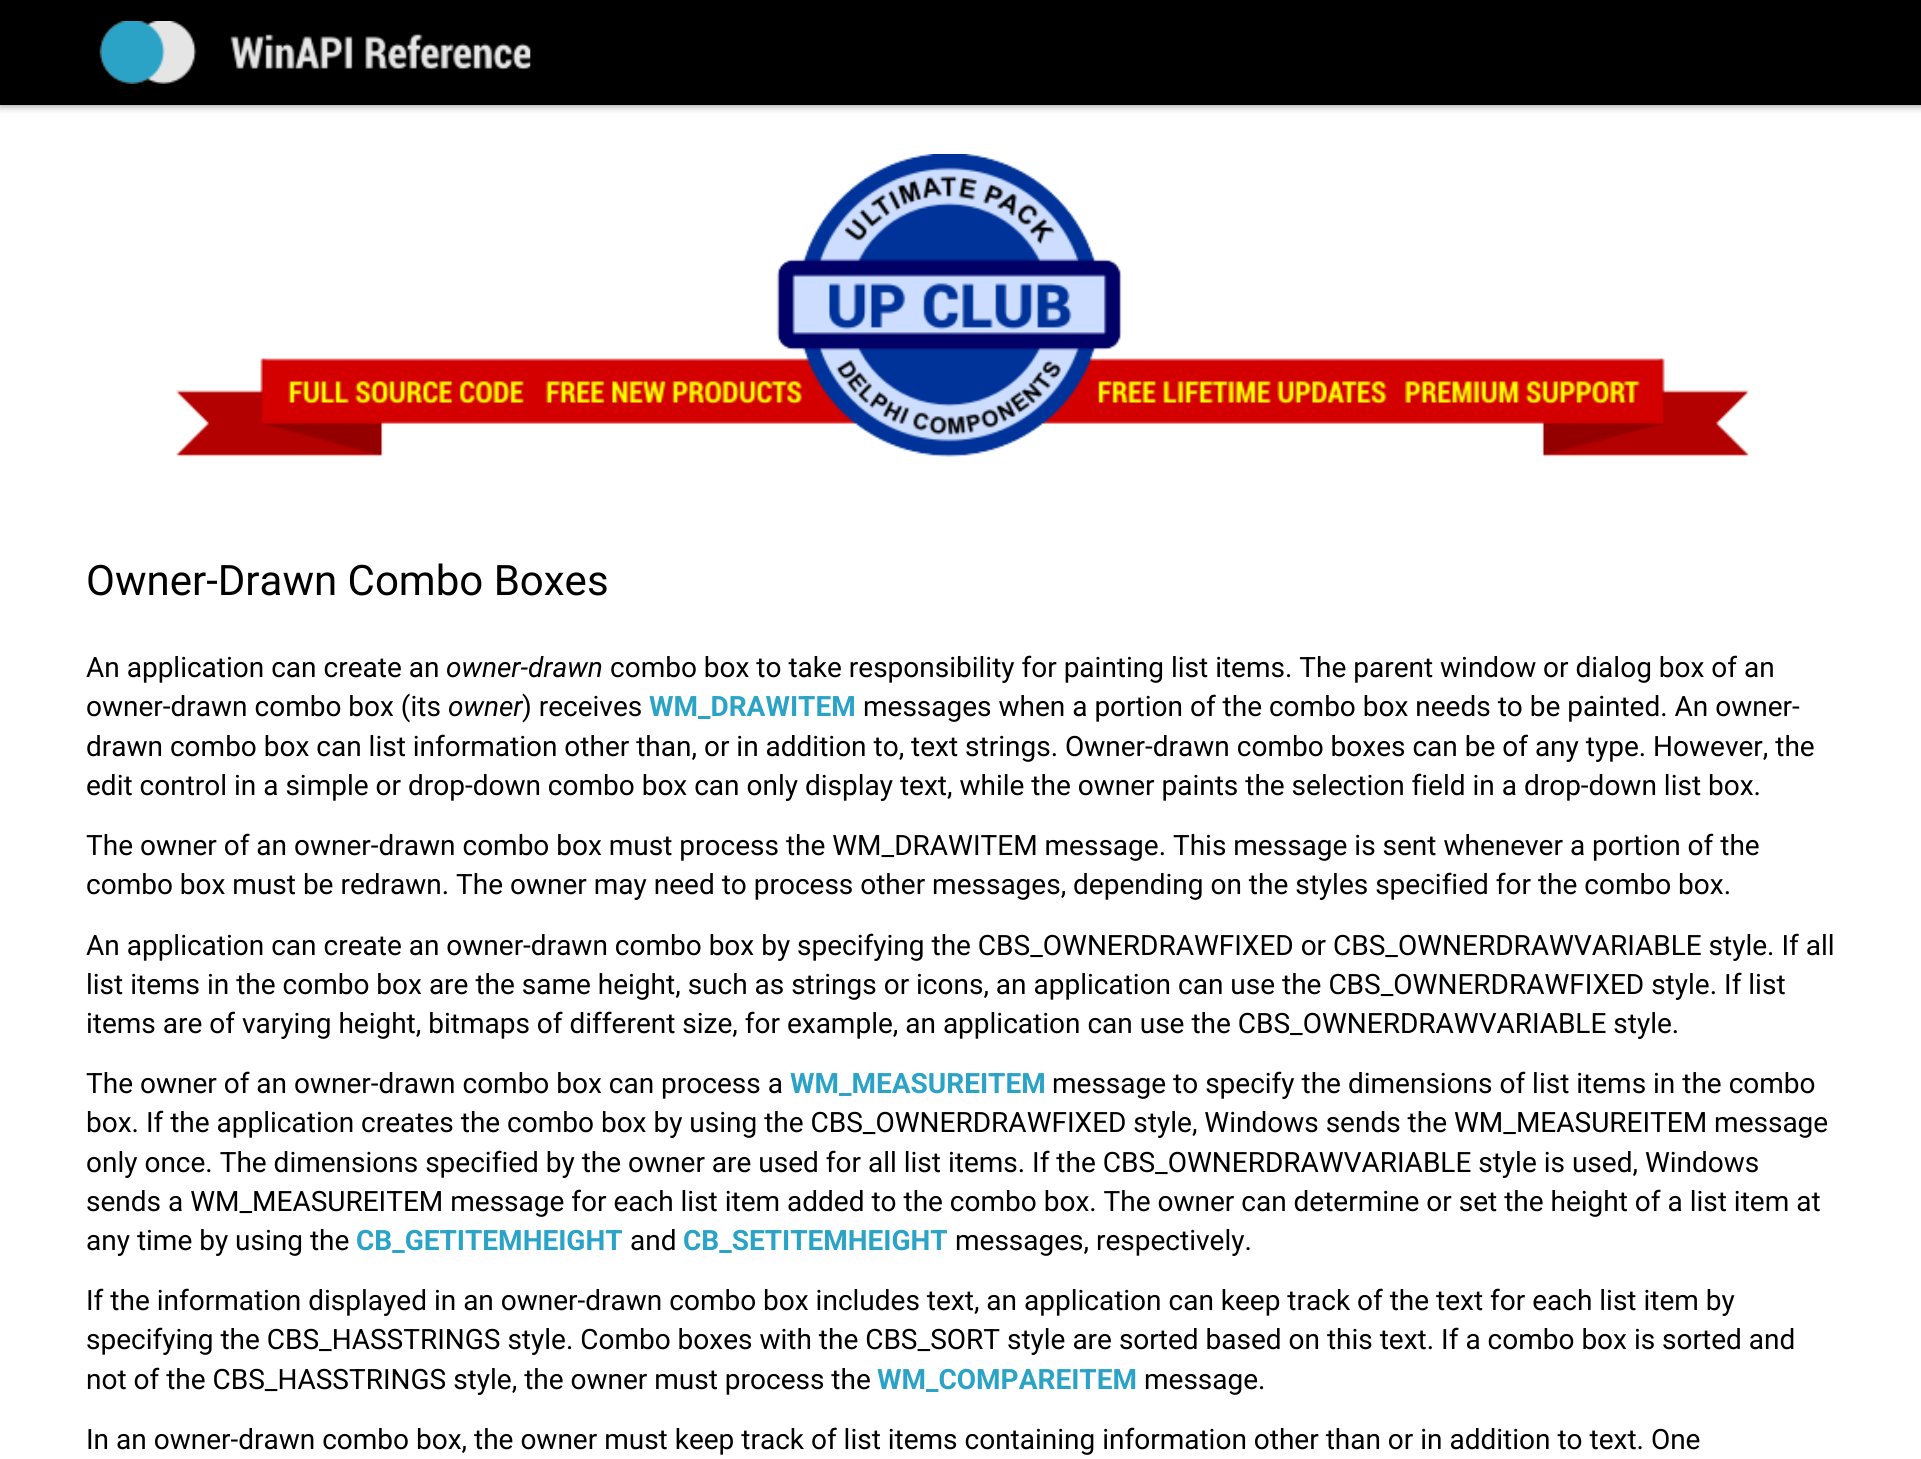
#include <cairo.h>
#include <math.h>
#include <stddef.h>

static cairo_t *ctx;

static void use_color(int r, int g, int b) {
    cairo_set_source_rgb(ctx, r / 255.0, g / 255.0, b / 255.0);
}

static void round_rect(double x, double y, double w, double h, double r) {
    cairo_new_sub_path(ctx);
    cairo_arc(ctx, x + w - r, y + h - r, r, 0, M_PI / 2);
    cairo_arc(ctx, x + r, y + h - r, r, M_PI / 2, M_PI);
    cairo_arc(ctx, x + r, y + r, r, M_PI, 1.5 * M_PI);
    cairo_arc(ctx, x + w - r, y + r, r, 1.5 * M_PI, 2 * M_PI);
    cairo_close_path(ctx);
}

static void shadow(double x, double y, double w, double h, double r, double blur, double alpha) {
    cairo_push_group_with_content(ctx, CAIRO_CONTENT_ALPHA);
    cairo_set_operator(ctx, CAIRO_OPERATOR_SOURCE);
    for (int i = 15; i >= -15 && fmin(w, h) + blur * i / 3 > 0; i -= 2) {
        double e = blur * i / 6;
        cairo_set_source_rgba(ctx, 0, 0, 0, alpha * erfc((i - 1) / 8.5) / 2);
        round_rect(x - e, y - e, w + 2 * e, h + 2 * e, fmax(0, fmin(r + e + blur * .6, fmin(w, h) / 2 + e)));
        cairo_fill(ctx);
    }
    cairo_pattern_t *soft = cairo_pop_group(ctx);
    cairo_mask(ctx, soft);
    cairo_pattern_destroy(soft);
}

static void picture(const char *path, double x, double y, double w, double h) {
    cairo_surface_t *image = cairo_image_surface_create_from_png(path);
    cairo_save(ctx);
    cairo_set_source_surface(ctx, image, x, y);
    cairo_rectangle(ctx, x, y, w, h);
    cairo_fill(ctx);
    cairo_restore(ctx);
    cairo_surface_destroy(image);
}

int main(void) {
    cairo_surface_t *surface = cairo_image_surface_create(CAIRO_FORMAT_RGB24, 1921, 1459);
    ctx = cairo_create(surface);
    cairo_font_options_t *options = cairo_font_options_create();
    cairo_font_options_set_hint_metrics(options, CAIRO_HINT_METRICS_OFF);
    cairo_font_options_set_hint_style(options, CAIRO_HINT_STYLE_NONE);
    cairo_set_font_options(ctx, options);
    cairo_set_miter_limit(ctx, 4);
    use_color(255, 255, 255);
    cairo_paint(ctx);
    use_color(0, 0, 0);
    shadow(0, 0, 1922, 105, 0, 4.5, 0.5);
    use_color(0, 0, 0);
    cairo_rectangle(ctx, 0, 0, 1921, 105);
    cairo_fill(ctx);
    picture("img1.png", 99, 21, 432, 63);
    picture("img2.png", 175, 154, 1574, 303);
    cairo_select_font_face(ctx, "Roboto", CAIRO_FONT_SLANT_NORMAL, CAIRO_FONT_WEIGHT_NORMAL);
    cairo_set_font_size(ctx, 42);
    cairo_move_to(ctx, 86, 595);
    cairo_show_text(ctx, "Owner-Drawn Combo Boxes");
    cairo_set_font_size(ctx, 28);
    cairo_move_to(ctx, 86, 677);
    cairo_show_text(ctx, "An application can create an");
    cairo_select_font_face(ctx, "Roboto", CAIRO_FONT_SLANT_ITALIC, CAIRO_FONT_WEIGHT_NORMAL);
    cairo_move_to(ctx, 446, 677);
    cairo_show_text(ctx, "owner-drawn");
    cairo_select_font_face(ctx, "Roboto", CAIRO_FONT_SLANT_NORMAL, CAIRO_FONT_WEIGHT_NORMAL);
    cairo_move_to(ctx, 610, 677);
    cairo_show_text(ctx, "combo box to take responsibility for painting list items. The parent window or dialog box of an");
    cairo_move_to(ctx, 86, 716);
    cairo_show_text(ctx, "owner-drawn combo box (its");
    cairo_select_font_face(ctx, "Roboto", CAIRO_FONT_SLANT_ITALIC, CAIRO_FONT_WEIGHT_NORMAL);
    cairo_move_to(ctx, 448, 716);
    cairo_show_text(ctx, "owner");
    cairo_select_font_face(ctx, "Roboto", CAIRO_FONT_SLANT_NORMAL, CAIRO_FONT_WEIGHT_NORMAL);
    cairo_move_to(ctx, 522, 716);
    cairo_show_text(ctx, ") receives");
    cairo_select_font_face(ctx, "Roboto", CAIRO_FONT_SLANT_NORMAL, CAIRO_FONT_WEIGHT_BOLD);
    use_color(42, 163, 199);
    cairo_move_to(ctx, 649, 716);
    cairo_show_text(ctx, "WM_DRAWITEM");
    cairo_select_font_face(ctx, "Roboto", CAIRO_FONT_SLANT_NORMAL, CAIRO_FONT_WEIGHT_NORMAL);
    use_color(0, 0, 0);
    cairo_move_to(ctx, 863, 716);
    cairo_show_text(ctx, "messages when a portion of the combo box needs to be painted. An owner-");
    cairo_move_to(ctx, 86, 756);
    cairo_show_text(ctx, "drawn combo box can list information other than, or in addition to, text strings. Owner-drawn combo boxes can be of any type. However, the");
    cairo_move_to(ctx, 86, 795);
    cairo_show_text(ctx, "edit control in a simple or drop-down combo box can only display text, while the owner paints the selection field in a drop-down list box.");
    cairo_move_to(ctx, 86, 855);
    cairo_show_text(ctx, "The owner of an owner-drawn combo box must process the WM_DRAWITEM message. This message is sent whenever a portion of the");
    cairo_move_to(ctx, 86, 894);
    cairo_show_text(ctx, "combo box must be redrawn. The owner may need to process other messages, depending on the styles specified for the combo box.");
    cairo_move_to(ctx, 86, 955);
    cairo_show_text(ctx, "An application can create an owner-drawn combo box by specifying the CBS_OWNERDRAWFIXED or CBS_OWNERDRAWVARIABLE style. If all");
    cairo_move_to(ctx, 86, 994);
    cairo_show_text(ctx, "list items in the combo box are the same height, such as strings or icons, an application can use the CBS_OWNERDRAWFIXED style. If list");
    cairo_move_to(ctx, 86, 1033);
    cairo_show_text(ctx, "items are of varying height, bitmaps of different size, for example, an application can use the CBS_OWNERDRAWVARIABLE style.");
    cairo_move_to(ctx, 86, 1093);
    cairo_show_text(ctx, "The owner of an owner-drawn combo box can process a");
    cairo_select_font_face(ctx, "Roboto", CAIRO_FONT_SLANT_NORMAL, CAIRO_FONT_WEIGHT_BOLD);
    use_color(42, 163, 199);
    cairo_move_to(ctx, 790, 1093);
    cairo_show_text(ctx, "WM_MEASUREITEM");
    cairo_select_font_face(ctx, "Roboto", CAIRO_FONT_SLANT_NORMAL, CAIRO_FONT_WEIGHT_NORMAL);
    use_color(0, 0, 0);
    cairo_move_to(ctx, 1052, 1093);
    cairo_show_text(ctx, "message to specify the dimensions of list items in the combo");
    cairo_move_to(ctx, 86, 1132);
    cairo_show_text(ctx, "box. If the application creates the combo box by using the CBS_OWNERDRAWFIXED style, Windows sends the WM_MEASUREITEM message");
    cairo_move_to(ctx, 86, 1172);
    cairo_show_text(ctx, "only once. The dimensions specified by the owner are used for all list items. If the CBS_OWNERDRAWVARIABLE style is used, Windows");
    cairo_move_to(ctx, 86, 1211);
    cairo_show_text(ctx, "sends a WM_MEASUREITEM message for each list item added to the combo box. The owner can determine or set the height of a list item at");
    cairo_move_to(ctx, 86, 1250);
    cairo_show_text(ctx, "any time by using the");
    cairo_select_font_face(ctx, "Roboto", CAIRO_FONT_SLANT_NORMAL, CAIRO_FONT_WEIGHT_BOLD);
    use_color(42, 163, 199);
    cairo_move_to(ctx, 356, 1250);
    cairo_show_text(ctx, "CB_GETITEMHEIGHT");
    cairo_select_font_face(ctx, "Roboto", CAIRO_FONT_SLANT_NORMAL, CAIRO_FONT_WEIGHT_NORMAL);
    use_color(0, 0, 0);
    cairo_move_to(ctx, 630, 1250);
    cairo_show_text(ctx, "and");
    cairo_select_font_face(ctx, "Roboto", CAIRO_FONT_SLANT_NORMAL, CAIRO_FONT_WEIGHT_BOLD);
    use_color(42, 163, 199);
    cairo_move_to(ctx, 683, 1250);
    cairo_show_text(ctx, "CB_SETITEMHEIGHT");
    cairo_select_font_face(ctx, "Roboto", CAIRO_FONT_SLANT_NORMAL, CAIRO_FONT_WEIGHT_NORMAL);
    use_color(0, 0, 0);
    cairo_move_to(ctx, 955, 1250);
    cairo_show_text(ctx, "messages, respectively.");
    cairo_move_to(ctx, 86, 1310);
    cairo_show_text(ctx, "If the information displayed in an owner-drawn combo box includes text, an application can keep track of the text for each list item by");
    cairo_move_to(ctx, 86, 1349);
    cairo_show_text(ctx, "specifying the CBS_HASSTRINGS style. Combo boxes with the CBS_SORT style are sorted based on this text. If a combo box is sorted and");
    cairo_move_to(ctx, 86, 1389);
    cairo_show_text(ctx, "not of the CBS_HASSTRINGS style, the owner must process the");
    cairo_select_font_face(ctx, "Roboto", CAIRO_FONT_SLANT_NORMAL, CAIRO_FONT_WEIGHT_BOLD);
    use_color(42, 163, 199);
    cairo_move_to(ctx, 877, 1389);
    cairo_show_text(ctx, "WM_COMPAREITEM");
    cairo_select_font_face(ctx, "Roboto", CAIRO_FONT_SLANT_NORMAL, CAIRO_FONT_WEIGHT_NORMAL);
    use_color(0, 0, 0);
    cairo_move_to(ctx, 1144, 1389);
    cairo_show_text(ctx, "message.");
    cairo_move_to(ctx, 86, 1449);
    cairo_show_text(ctx, "In an owner-drawn combo box, the owner must keep track of list items containing information other than or in addition to text. One");
    cairo_surface_write_to_png(surface, "result.png");
    cairo_font_options_destroy(options);
    cairo_destroy(ctx);
    cairo_surface_destroy(surface);
    return 0;
}
